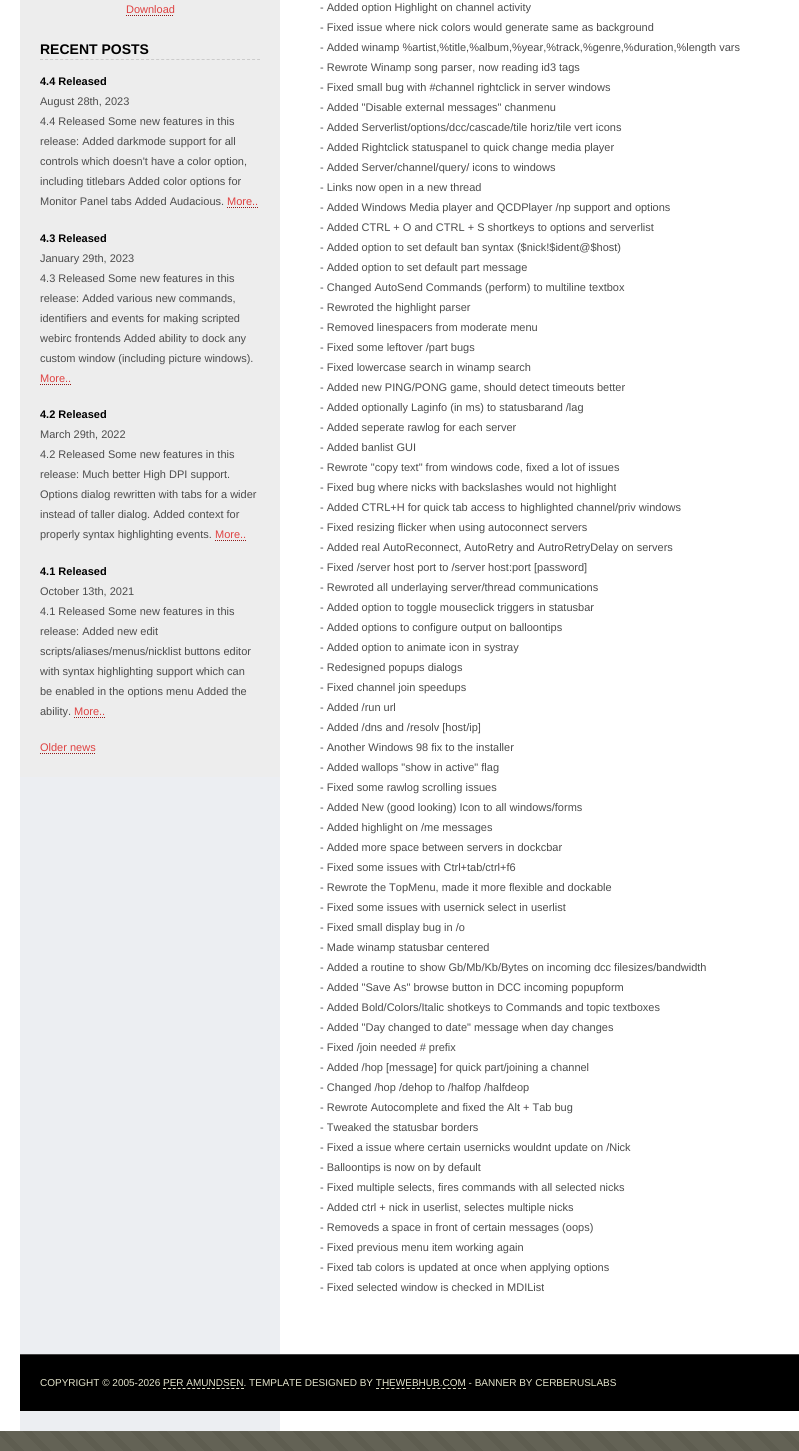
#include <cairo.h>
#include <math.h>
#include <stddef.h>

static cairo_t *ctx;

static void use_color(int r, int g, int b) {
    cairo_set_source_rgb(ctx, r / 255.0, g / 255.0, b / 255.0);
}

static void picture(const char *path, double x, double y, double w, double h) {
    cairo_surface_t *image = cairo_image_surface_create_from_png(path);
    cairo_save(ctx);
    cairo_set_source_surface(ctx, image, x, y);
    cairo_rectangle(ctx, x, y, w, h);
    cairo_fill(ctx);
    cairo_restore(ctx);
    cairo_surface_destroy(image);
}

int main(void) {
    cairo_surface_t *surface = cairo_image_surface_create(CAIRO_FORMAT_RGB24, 799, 1451);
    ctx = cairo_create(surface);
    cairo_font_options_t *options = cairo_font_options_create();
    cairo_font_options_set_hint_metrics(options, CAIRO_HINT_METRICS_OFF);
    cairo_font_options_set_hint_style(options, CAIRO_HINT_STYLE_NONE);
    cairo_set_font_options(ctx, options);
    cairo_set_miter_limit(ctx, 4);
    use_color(255, 255, 255);
    cairo_paint(ctx);
    picture("img1.png", 0, 1431, 799, 20);
    use_color(236, 238, 242);
    cairo_rectangle(ctx, 20, 777, 260, 654);
    cairo_fill(ctx);
    use_color(237, 237, 237);
    cairo_rectangle(ctx, 20, 0, 260, 777);
    cairo_fill(ctx);
    cairo_select_font_face(ctx, "Liberation Sans", CAIRO_FONT_SLANT_NORMAL, CAIRO_FONT_WEIGHT_NORMAL);
    cairo_set_font_size(ctx, 11);
    use_color(223, 65, 65);
    cairo_move_to(ctx, 126, 13);
    cairo_show_text(ctx, "Download");
    cairo_new_path(ctx);
    cairo_move_to(ctx, 126, 15.5);
    cairo_line_to(ctx, 174, 15.5);
    use_color(147, 25, 25);
    cairo_set_line_width(ctx, 1);
    cairo_set_dash(ctx, (double[]){1, 1}, 2, 0);
    cairo_stroke(ctx);
    cairo_new_path(ctx);
    cairo_move_to(ctx, 40, 59.5);
    cairo_line_to(ctx, 260, 59.5);
    use_color(204, 204, 204);
    cairo_set_dash(ctx, (double[]){3, 2.05}, 2, 0);
    cairo_stroke(ctx);
    cairo_select_font_face(ctx, "Liberation Sans", CAIRO_FONT_SLANT_NORMAL, CAIRO_FONT_WEIGHT_BOLD);
    cairo_set_font_size(ctx, 14);
    use_color(0, 0, 0);
    cairo_move_to(ctx, 40, 54);
    cairo_show_text(ctx, "RECENT POSTS");
    cairo_set_font_size(ctx, 11);
    cairo_move_to(ctx, 40, 85);
    cairo_show_text(ctx, "4.4 Released");
    cairo_select_font_face(ctx, "Liberation Sans", CAIRO_FONT_SLANT_NORMAL, CAIRO_FONT_WEIGHT_NORMAL);
    use_color(76, 76, 76);
    cairo_move_to(ctx, 40, 105);
    cairo_show_text(ctx, "August 28th, 2023");
    cairo_move_to(ctx, 40, 125);
    cairo_show_text(ctx, "4.4 Released Some new features in this");
    cairo_move_to(ctx, 40, 145);
    cairo_show_text(ctx, "release: Added darkmode support for all");
    cairo_move_to(ctx, 40, 165);
    cairo_show_text(ctx, "controls which doesn't have a color option,");
    cairo_move_to(ctx, 40, 185);
    cairo_show_text(ctx, "including titlebars Added color options for");
    cairo_move_to(ctx, 40, 205);
    cairo_show_text(ctx, "Monitor Panel tabs Added Audacious.");
    use_color(223, 65, 65);
    cairo_move_to(ctx, 227, 205);
    cairo_show_text(ctx, "More..");
    cairo_new_path(ctx);
    cairo_move_to(ctx, 227, 207.5);
    cairo_line_to(ctx, 258, 207.5);
    use_color(147, 25, 25);
    cairo_set_dash(ctx, (double[]){1, 1}, 2, 0);
    cairo_stroke(ctx);
    cairo_select_font_face(ctx, "Liberation Sans", CAIRO_FONT_SLANT_NORMAL, CAIRO_FONT_WEIGHT_BOLD);
    use_color(0, 0, 0);
    cairo_move_to(ctx, 40, 242);
    cairo_show_text(ctx, "4.3 Released");
    cairo_select_font_face(ctx, "Liberation Sans", CAIRO_FONT_SLANT_NORMAL, CAIRO_FONT_WEIGHT_NORMAL);
    use_color(76, 76, 76);
    cairo_move_to(ctx, 40, 262);
    cairo_show_text(ctx, "January 29th, 2023");
    cairo_move_to(ctx, 40, 282);
    cairo_show_text(ctx, "4.3 Released Some new features in this");
    cairo_move_to(ctx, 40, 302);
    cairo_show_text(ctx, "release: Added various new commands,");
    cairo_move_to(ctx, 40, 322);
    cairo_show_text(ctx, "identifiers and events for making scripted");
    cairo_move_to(ctx, 40, 342);
    cairo_show_text(ctx, "webirc frontends Added ability to dock any");
    cairo_move_to(ctx, 40, 362);
    cairo_show_text(ctx, "custom window (including picture windows).");
    use_color(223, 65, 65);
    cairo_move_to(ctx, 40, 382);
    cairo_show_text(ctx, "More..");
    cairo_new_path(ctx);
    cairo_move_to(ctx, 40, 384.5);
    cairo_line_to(ctx, 71, 384.5);
    use_color(147, 25, 25);
    cairo_stroke(ctx);
    cairo_select_font_face(ctx, "Liberation Sans", CAIRO_FONT_SLANT_NORMAL, CAIRO_FONT_WEIGHT_BOLD);
    use_color(0, 0, 0);
    cairo_move_to(ctx, 40, 418);
    cairo_show_text(ctx, "4.2 Released");
    cairo_select_font_face(ctx, "Liberation Sans", CAIRO_FONT_SLANT_NORMAL, CAIRO_FONT_WEIGHT_NORMAL);
    use_color(76, 76, 76);
    cairo_move_to(ctx, 40, 438);
    cairo_show_text(ctx, "March 29th, 2022");
    cairo_move_to(ctx, 40, 458);
    cairo_show_text(ctx, "4.2 Released Some new features in this");
    cairo_move_to(ctx, 40, 478);
    cairo_show_text(ctx, "release: Much better High DPI support.");
    cairo_move_to(ctx, 40, 498);
    cairo_show_text(ctx, "Options dialog rewritten with tabs for a wider");
    cairo_move_to(ctx, 40, 518);
    cairo_show_text(ctx, "instead of taller dialog. Added context for");
    cairo_move_to(ctx, 40, 538);
    cairo_show_text(ctx, "properly syntax highlighting events.");
    use_color(223, 65, 65);
    cairo_move_to(ctx, 215, 538);
    cairo_show_text(ctx, "More..");
    cairo_new_path(ctx);
    cairo_move_to(ctx, 215, 540.5);
    cairo_line_to(ctx, 246, 540.5);
    use_color(147, 25, 25);
    cairo_stroke(ctx);
    cairo_select_font_face(ctx, "Liberation Sans", CAIRO_FONT_SLANT_NORMAL, CAIRO_FONT_WEIGHT_BOLD);
    use_color(0, 0, 0);
    cairo_move_to(ctx, 40, 575);
    cairo_show_text(ctx, "4.1 Released");
    cairo_select_font_face(ctx, "Liberation Sans", CAIRO_FONT_SLANT_NORMAL, CAIRO_FONT_WEIGHT_NORMAL);
    use_color(76, 76, 76);
    cairo_move_to(ctx, 40, 595);
    cairo_show_text(ctx, "October 13th, 2021");
    cairo_move_to(ctx, 40, 615);
    cairo_show_text(ctx, "4.1 Released Some new features in this");
    cairo_move_to(ctx, 40, 635);
    cairo_show_text(ctx, "release: Added new edit");
    cairo_move_to(ctx, 40, 655);
    cairo_show_text(ctx, "scripts/aliases/menus/nicklist buttons editor");
    cairo_move_to(ctx, 40, 675);
    cairo_show_text(ctx, "with syntax highlighting support which can");
    cairo_move_to(ctx, 40, 695);
    cairo_show_text(ctx, "be enabled in the options menu Added the");
    cairo_move_to(ctx, 40, 715);
    cairo_show_text(ctx, "ability.");
    use_color(223, 65, 65);
    cairo_move_to(ctx, 74, 715);
    cairo_show_text(ctx, "More..");
    cairo_new_path(ctx);
    cairo_move_to(ctx, 74, 717.5);
    cairo_line_to(ctx, 105, 717.5);
    use_color(147, 25, 25);
    cairo_stroke(ctx);
    use_color(223, 65, 65);
    cairo_move_to(ctx, 40, 751);
    cairo_show_text(ctx, "Older news");
    cairo_new_path(ctx);
    cairo_move_to(ctx, 40, 753.5);
    cairo_line_to(ctx, 96, 753.5);
    use_color(147, 25, 25);
    cairo_stroke(ctx);
    use_color(76, 76, 76);
    cairo_move_to(ctx, 320, 11);
    cairo_show_text(ctx, "- Added option Highlight on channel activity");
    cairo_move_to(ctx, 320, 31);
    cairo_show_text(ctx, "- Fixed issue where nick colors would generate same as background");
    cairo_move_to(ctx, 320, 51);
    cairo_show_text(ctx, "- Added winamp %artist,%title,%album,%year,%track,%genre,%duration,%length vars");
    cairo_move_to(ctx, 320, 71);
    cairo_show_text(ctx, "- Rewrote Winamp song parser, now reading id3 tags");
    cairo_move_to(ctx, 320, 91);
    cairo_show_text(ctx, "- Fixed small bug with #channel rightclick in server windows");
    cairo_move_to(ctx, 320, 111);
    cairo_show_text(ctx, "- Added \"Disable external messages\" chanmenu");
    cairo_move_to(ctx, 320, 131);
    cairo_show_text(ctx, "- Added Serverlist/options/dcc/cascade/tile horiz/tile vert icons");
    cairo_move_to(ctx, 320, 151);
    cairo_show_text(ctx, "- Added Rightclick statuspanel to quick change media player");
    cairo_move_to(ctx, 320, 171);
    cairo_show_text(ctx, "- Added Server/channel/query/ icons to windows");
    cairo_move_to(ctx, 320, 191);
    cairo_show_text(ctx, "- Links now open in a new thread");
    cairo_move_to(ctx, 320, 211);
    cairo_show_text(ctx, "- Added Windows Media player and QCDPlayer /np support and options");
    cairo_move_to(ctx, 320, 231);
    cairo_show_text(ctx, "- Added CTRL + O and CTRL + S shortkeys to options and serverlist");
    cairo_move_to(ctx, 320, 251);
    cairo_show_text(ctx, "- Added option to set default ban syntax ($nick!$ident@$host)");
    cairo_move_to(ctx, 320, 271);
    cairo_show_text(ctx, "- Added option to set default part message");
    cairo_move_to(ctx, 320, 291);
    cairo_show_text(ctx, "- Changed AutoSend Commands (perform) to multiline textbox");
    cairo_move_to(ctx, 320, 311);
    cairo_show_text(ctx, "- Rewroted the highlight parser");
    cairo_move_to(ctx, 320, 331);
    cairo_show_text(ctx, "- Removed linespacers from moderate menu");
    cairo_move_to(ctx, 320, 351);
    cairo_show_text(ctx, "- Fixed some leftover /part bugs");
    cairo_move_to(ctx, 320, 371);
    cairo_show_text(ctx, "- Fixed lowercase search in winamp search");
    cairo_move_to(ctx, 320, 391);
    cairo_show_text(ctx, "- Added new PING/PONG game, should detect timeouts better");
    cairo_move_to(ctx, 320, 411);
    cairo_show_text(ctx, "- Added optionally Laginfo (in ms) to statusbarand /lag");
    cairo_move_to(ctx, 320, 431);
    cairo_show_text(ctx, "- Added seperate rawlog for each server");
    cairo_move_to(ctx, 320, 451);
    cairo_show_text(ctx, "- Added banlist GUI");
    cairo_move_to(ctx, 320, 471);
    cairo_show_text(ctx, "- Rewrote \"copy text\" from windows code, fixed a lot of issues");
    cairo_move_to(ctx, 320, 491);
    cairo_show_text(ctx, "- Fixed bug where nicks with backslashes would not highlight");
    cairo_move_to(ctx, 320, 511);
    cairo_show_text(ctx, "- Added CTRL+H for quick tab access to highlighted channel/priv windows");
    cairo_move_to(ctx, 320, 531);
    cairo_show_text(ctx, "- Fixed resizing flicker when using autoconnect servers");
    cairo_move_to(ctx, 320, 551);
    cairo_show_text(ctx, "- Added real AutoReconnect, AutoRetry and AutroRetryDelay on servers");
    cairo_move_to(ctx, 320, 571);
    cairo_show_text(ctx, "- Fixed /server host port to /server host:port [password]");
    cairo_move_to(ctx, 320, 591);
    cairo_show_text(ctx, "- Rewroted all underlaying server/thread communications");
    cairo_move_to(ctx, 320, 611);
    cairo_show_text(ctx, "- Added option to toggle mouseclick triggers in statusbar");
    cairo_move_to(ctx, 320, 631);
    cairo_show_text(ctx, "- Added options to configure output on balloontips");
    cairo_move_to(ctx, 320, 651);
    cairo_show_text(ctx, "- Added option to animate icon in systray");
    cairo_move_to(ctx, 320, 671);
    cairo_show_text(ctx, "- Redesigned popups dialogs");
    cairo_move_to(ctx, 320, 691);
    cairo_show_text(ctx, "- Fixed channel join speedups");
    cairo_move_to(ctx, 320, 711);
    cairo_show_text(ctx, "- Added /run url");
    cairo_move_to(ctx, 320, 731);
    cairo_show_text(ctx, "- Added /dns and /resolv [host/ip]");
    cairo_move_to(ctx, 320, 751);
    cairo_show_text(ctx, "- Another Windows 98 fix to the installer");
    cairo_move_to(ctx, 320, 771);
    cairo_show_text(ctx, "- Added wallops \"show in active\" flag");
    cairo_move_to(ctx, 320, 791);
    cairo_show_text(ctx, "- Fixed some rawlog scrolling issues");
    cairo_move_to(ctx, 320, 811);
    cairo_show_text(ctx, "- Added New (good looking) Icon to all windows/forms");
    cairo_move_to(ctx, 320, 831);
    cairo_show_text(ctx, "- Added highlight on /me messages");
    cairo_move_to(ctx, 320, 851);
    cairo_show_text(ctx, "- Added more space between servers in dockcbar");
    cairo_move_to(ctx, 320, 871);
    cairo_show_text(ctx, "- Fixed some issues with Ctrl+tab/ctrl+f6");
    cairo_move_to(ctx, 320, 891);
    cairo_show_text(ctx, "- Rewrote the TopMenu, made it more flexible and dockable");
    cairo_move_to(ctx, 320, 911);
    cairo_show_text(ctx, "- Fixed some issues with usernick select in userlist");
    cairo_move_to(ctx, 320, 931);
    cairo_show_text(ctx, "- Fixed small display bug in /o");
    cairo_move_to(ctx, 320, 951);
    cairo_show_text(ctx, "- Made winamp statusbar centered");
    cairo_move_to(ctx, 320, 971);
    cairo_show_text(ctx, "- Added a routine to show Gb/Mb/Kb/Bytes on incoming dcc filesizes/bandwidth");
    cairo_move_to(ctx, 320, 991);
    cairo_show_text(ctx, "- Added \"Save As\" browse button in DCC incoming popupform");
    cairo_move_to(ctx, 320, 1011);
    cairo_show_text(ctx, "- Added Bold/Colors/Italic shotkeys to Commands and topic textboxes");
    cairo_move_to(ctx, 320, 1031);
    cairo_show_text(ctx, "- Added \"Day changed to date\" message when day changes");
    cairo_move_to(ctx, 320, 1051);
    cairo_show_text(ctx, "- Fixed /join needed # prefix");
    cairo_move_to(ctx, 320, 1071);
    cairo_show_text(ctx, "- Added /hop [message] for quick part/joining a channel");
    cairo_move_to(ctx, 320, 1091);
    cairo_show_text(ctx, "- Changed /hop /dehop to /halfop /halfdeop");
    cairo_move_to(ctx, 320, 1111);
    cairo_show_text(ctx, "- Rewrote Autocomplete and fixed the Alt + Tab bug");
    cairo_move_to(ctx, 320, 1131);
    cairo_show_text(ctx, "- Tweaked the statusbar borders");
    cairo_move_to(ctx, 320, 1151);
    cairo_show_text(ctx, "- Fixed a issue where certain usernicks wouldnt update on /Nick");
    cairo_move_to(ctx, 320, 1171);
    cairo_show_text(ctx, "- Balloontips is now on by default");
    cairo_move_to(ctx, 320, 1191);
    cairo_show_text(ctx, "- Fixed multiple selects, fires commands with all selected nicks");
    cairo_move_to(ctx, 320, 1211);
    cairo_show_text(ctx, "- Added ctrl + nick in userlist, selectes multiple nicks");
    cairo_move_to(ctx, 320, 1231);
    cairo_show_text(ctx, "- Removeds a space in front of certain messages (oops)");
    cairo_move_to(ctx, 320, 1251);
    cairo_show_text(ctx, "- Fixed previous menu item working again");
    cairo_move_to(ctx, 320, 1271);
    cairo_show_text(ctx, "- Fixed tab colors is updated at once when applying options");
    cairo_move_to(ctx, 320, 1291);
    cairo_show_text(ctx, "- Fixed selected window is checked in MDIList");
    use_color(0, 0, 0);
    cairo_rectangle(ctx, 20, 1355, 779, 56);
    cairo_fill(ctx);
    use_color(68, 68, 68);
    cairo_rectangle(ctx, 20, 1354, 779, 1);
    cairo_fill(ctx);
    cairo_set_font_size(ctx, 10);
    use_color(229, 229, 204);
    cairo_move_to(ctx, 40, 1386);
    cairo_show_text(ctx, "COPYRIGHT © 2005-2026 PER AMUNDSEN. TEMPLATE DESIGNED BY THEWEBHUB.COM - BANNER BY CERBERUSLABS");
    cairo_new_path(ctx);
    cairo_move_to(ctx, 163, 1388.5);
    cairo_line_to(ctx, 244, 1388.5);
    cairo_set_dash(ctx, (double[]){3, 1.88}, 2, 0);
    cairo_stroke(ctx);
    cairo_new_path(ctx);
    cairo_move_to(ctx, 376, 1388.5);
    cairo_line_to(ctx, 466, 1388.5);
    cairo_set_dash(ctx, (double[]){3, 2.12}, 2, 0);
    cairo_stroke(ctx);
    cairo_surface_write_to_png(surface, "result.png");
    cairo_font_options_destroy(options);
    cairo_destroy(ctx);
    cairo_surface_destroy(surface);
    return 0;
}
